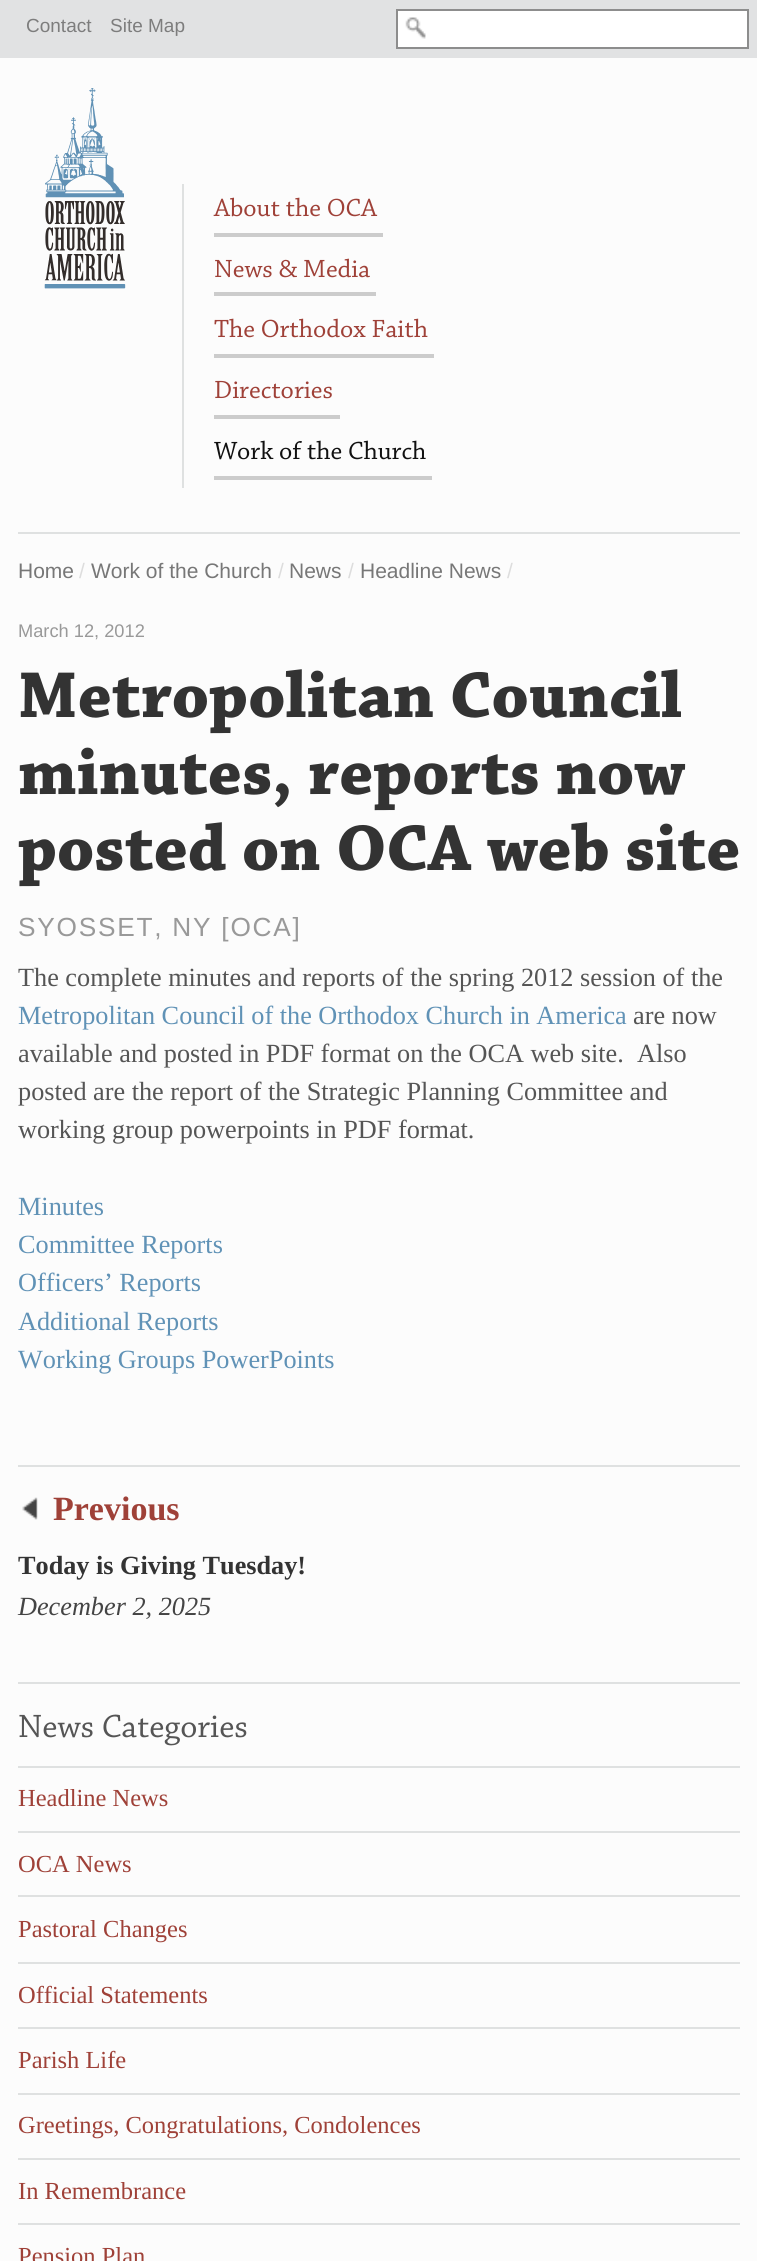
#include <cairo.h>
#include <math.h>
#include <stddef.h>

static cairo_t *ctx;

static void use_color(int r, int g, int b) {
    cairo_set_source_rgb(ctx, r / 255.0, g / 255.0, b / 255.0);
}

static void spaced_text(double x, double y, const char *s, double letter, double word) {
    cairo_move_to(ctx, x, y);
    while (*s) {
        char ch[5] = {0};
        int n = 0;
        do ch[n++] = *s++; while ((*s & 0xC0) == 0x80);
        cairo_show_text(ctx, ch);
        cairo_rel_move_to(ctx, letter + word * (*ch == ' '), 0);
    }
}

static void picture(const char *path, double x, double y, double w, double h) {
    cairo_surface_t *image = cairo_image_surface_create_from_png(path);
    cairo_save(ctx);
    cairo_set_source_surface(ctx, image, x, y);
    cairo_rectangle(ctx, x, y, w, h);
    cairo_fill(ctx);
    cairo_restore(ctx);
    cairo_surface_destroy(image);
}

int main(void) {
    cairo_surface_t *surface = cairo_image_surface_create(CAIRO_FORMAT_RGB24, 757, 2261);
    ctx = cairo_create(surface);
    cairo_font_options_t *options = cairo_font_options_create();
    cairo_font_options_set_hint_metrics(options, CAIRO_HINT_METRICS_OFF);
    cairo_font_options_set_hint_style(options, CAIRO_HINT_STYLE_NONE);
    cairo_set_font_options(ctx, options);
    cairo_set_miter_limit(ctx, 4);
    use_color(252, 252, 252);
    cairo_paint(ctx);
    use_color(225, 226, 227);
    cairo_rectangle(ctx, 0, 0, 757, 58);
    cairo_fill(ctx);
    cairo_select_font_face(ctx, "Liberation Sans", CAIRO_FONT_SLANT_NORMAL, CAIRO_FONT_WEIGHT_NORMAL);
    cairo_set_font_size(ctx, 19);
    use_color(125, 125, 125);
    cairo_move_to(ctx, 26, 32);
    cairo_show_text(ctx, "Contact");
    cairo_move_to(ctx, 110, 32);
    cairo_show_text(ctx, "Site Map");
    use_color(255, 255, 255);
    cairo_rectangle(ctx, 398, 11, 349, 36);
    cairo_fill(ctx);
    picture("img1.png", 405, 17, 21, 22);
    cairo_rectangle(ctx, 397, 10, 351, 38);
    use_color(141, 141, 141);
    cairo_stroke(ctx);
    picture("img2.png", 44, 88, 82, 201);
    use_color(223, 225, 225);
    cairo_rectangle(ctx, 182, 184, 2, 304);
    cairo_fill(ctx);
    use_color(204, 204, 204);
    cairo_rectangle(ctx, 214, 233, 169, 4);
    cairo_fill(ctx);
    cairo_select_font_face(ctx, "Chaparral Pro", CAIRO_FONT_SLANT_NORMAL, CAIRO_FONT_WEIGHT_NORMAL);
    cairo_set_font_size(ctx, 26.25);
    use_color(159, 65, 56);
    cairo_move_to(ctx, 214, 216);
    cairo_show_text(ctx, "About the OCA");
    use_color(204, 204, 204);
    cairo_rectangle(ctx, 214, 292, 162, 4);
    cairo_fill(ctx);
    use_color(159, 65, 56);
    cairo_move_to(ctx, 214, 277);
    cairo_show_text(ctx, "News & Media");
    use_color(204, 204, 204);
    cairo_rectangle(ctx, 214, 354, 220, 4);
    cairo_fill(ctx);
    use_color(159, 65, 56);
    cairo_move_to(ctx, 214, 337);
    cairo_show_text(ctx, "The Orthodox Faith");
    use_color(204, 204, 204);
    cairo_rectangle(ctx, 214, 415, 126, 4);
    cairo_fill(ctx);
    use_color(159, 65, 56);
    cairo_move_to(ctx, 214, 398);
    cairo_show_text(ctx, "Directories");
    use_color(204, 204, 204);
    cairo_rectangle(ctx, 214, 476, 218, 4);
    cairo_fill(ctx);
    use_color(17, 17, 17);
    cairo_move_to(ctx, 214, 459);
    cairo_show_text(ctx, "Work of the Church");
    use_color(223, 225, 225);
    cairo_rectangle(ctx, 18, 532, 722, 2);
    cairo_fill(ctx);
    cairo_select_font_face(ctx, "Liberation Sans", CAIRO_FONT_SLANT_NORMAL, CAIRO_FONT_WEIGHT_NORMAL);
    cairo_set_font_size(ctx, 21);
    use_color(119, 119, 119);
    cairo_move_to(ctx, 18, 578);
    cairo_show_text(ctx, "Home");
    use_color(221, 221, 221);
    cairo_move_to(ctx, 79, 578);
    cairo_show_text(ctx, "/");
    use_color(119, 119, 119);
    cairo_move_to(ctx, 91, 578);
    cairo_show_text(ctx, "Work of the Church");
    use_color(221, 221, 221);
    cairo_move_to(ctx, 278, 578);
    cairo_show_text(ctx, "/");
    use_color(119, 119, 119);
    cairo_move_to(ctx, 289, 578);
    cairo_show_text(ctx, "News");
    use_color(221, 221, 221);
    cairo_move_to(ctx, 348, 578);
    cairo_show_text(ctx, "/");
    use_color(119, 119, 119);
    cairo_move_to(ctx, 360, 578);
    cairo_show_text(ctx, "Headline News");
    use_color(221, 221, 221);
    cairo_move_to(ctx, 507, 578);
    cairo_show_text(ctx, "/");
    cairo_set_font_size(ctx, 18.25);
    use_color(153, 153, 153);
    cairo_move_to(ctx, 18, 637);
    cairo_show_text(ctx, "March 12, 2012");
    cairo_select_font_face(ctx, "Chaparral Pro", CAIRO_FONT_SLANT_NORMAL, CAIRO_FONT_WEIGHT_BOLD);
    cairo_set_font_size(ctx, 68.25);
    use_color(51, 51, 51);
    cairo_move_to(ctx, 18, 717);
    cairo_show_text(ctx, "Metropolitan Council");
    cairo_move_to(ctx, 18, 794);
    cairo_show_text(ctx, "minutes, reports now");
    cairo_move_to(ctx, 18, 870);
    cairo_show_text(ctx, "posted on OCA web site");
    cairo_select_font_face(ctx, "Liberation Sans", CAIRO_FONT_SLANT_NORMAL, CAIRO_FONT_WEIGHT_NORMAL);
    cairo_set_font_size(ctx, 26.25);
    use_color(153, 153, 153);
    spaced_text(18, 936, "SYOSSET, NY [OCA]", 1.75, 0);
    cairo_select_font_face(ctx, "Liberation Serif", CAIRO_FONT_SLANT_NORMAL, CAIRO_FONT_WEIGHT_NORMAL);
    use_color(85, 85, 85);
    cairo_move_to(ctx, 18, 986);
    cairo_show_text(ctx, "The complete minutes and reports of the spring 2012 session of the");
    use_color(96, 146, 182);
    cairo_move_to(ctx, 18, 1024);
    cairo_show_text(ctx, "Metropolitan Council of the Orthodox Church in America");
    use_color(85, 85, 85);
    cairo_move_to(ctx, 633, 1024);
    cairo_show_text(ctx, "are now");
    cairo_move_to(ctx, 18, 1062);
    cairo_show_text(ctx, "available and posted in PDF format on the OCA web site.  Also");
    cairo_move_to(ctx, 18, 1100);
    cairo_show_text(ctx, "posted are the report of the Strategic Planning Committee and");
    cairo_move_to(ctx, 18, 1138);
    cairo_show_text(ctx, "working group powerpoints in PDF format.");
    use_color(96, 146, 182);
    cairo_move_to(ctx, 18, 1215);
    cairo_show_text(ctx, "Minutes");
    cairo_move_to(ctx, 18, 1253);
    cairo_show_text(ctx, "Committee Reports");
    cairo_move_to(ctx, 18, 1291);
    cairo_show_text(ctx, "Officers’ Reports");
    cairo_move_to(ctx, 18, 1330);
    cairo_show_text(ctx, "Additional Reports");
    cairo_move_to(ctx, 18, 1368);
    cairo_show_text(ctx, "Working Groups PowerPoints");
    use_color(223, 225, 225);
    cairo_rectangle(ctx, 18, 1465, 722, 2);
    cairo_fill(ctx);
    picture("img3.png", 22, 1497, 16, 23);
    cairo_select_font_face(ctx, "Liberation Serif", CAIRO_FONT_SLANT_NORMAL, CAIRO_FONT_WEIGHT_BOLD);
    cairo_set_font_size(ctx, 34);
    use_color(159, 65, 56);
    cairo_move_to(ctx, 53, 1520);
    cairo_show_text(ctx, "Previous");
    cairo_set_font_size(ctx, 26.25);
    use_color(51, 51, 51);
    cairo_move_to(ctx, 18, 1574);
    cairo_show_text(ctx, "Today is Giving Tuesday!");
    cairo_select_font_face(ctx, "Liberation Serif", CAIRO_FONT_SLANT_ITALIC, CAIRO_FONT_WEIGHT_NORMAL);
    use_color(68, 68, 68);
    cairo_move_to(ctx, 18, 1615);
    cairo_show_text(ctx, "December 2, 2025");
    use_color(223, 225, 225);
    cairo_rectangle(ctx, 18, 1682, 722, 2);
    cairo_fill(ctx);
    cairo_select_font_face(ctx, "Chaparral Pro", CAIRO_FONT_SLANT_NORMAL, CAIRO_FONT_WEIGHT_NORMAL);
    cairo_set_font_size(ctx, 34);
    use_color(85, 85, 85);
    cairo_move_to(ctx, 18, 1737);
    cairo_show_text(ctx, "News Categories");
    use_color(223, 225, 225);
    cairo_rectangle(ctx, 18, 1766, 722, 2);
    cairo_fill(ctx);
    cairo_select_font_face(ctx, "Liberation Serif", CAIRO_FONT_SLANT_NORMAL, CAIRO_FONT_WEIGHT_NORMAL);
    cairo_set_font_size(ctx, 24.5);
    use_color(159, 65, 56);
    cairo_move_to(ctx, 18, 1806);
    cairo_show_text(ctx, "Headline News");
    use_color(223, 225, 225);
    cairo_rectangle(ctx, 18, 1831, 722, 2);
    cairo_fill(ctx);
    use_color(159, 65, 56);
    cairo_move_to(ctx, 18, 1872);
    cairo_show_text(ctx, "OCA News");
    use_color(223, 225, 225);
    cairo_rectangle(ctx, 18, 1895, 722, 2);
    cairo_fill(ctx);
    use_color(159, 65, 56);
    cairo_move_to(ctx, 18, 1937);
    cairo_show_text(ctx, "Pastoral Changes");
    use_color(223, 225, 225);
    cairo_rectangle(ctx, 18, 1962, 722, 2);
    cairo_fill(ctx);
    use_color(159, 65, 56);
    cairo_move_to(ctx, 18, 2003);
    cairo_show_text(ctx, "Official Statements");
    use_color(223, 225, 225);
    cairo_rectangle(ctx, 18, 2027, 722, 2);
    cairo_fill(ctx);
    use_color(159, 65, 56);
    cairo_move_to(ctx, 18, 2068);
    cairo_show_text(ctx, "Parish Life");
    use_color(223, 225, 225);
    cairo_rectangle(ctx, 18, 2093, 722, 2);
    cairo_fill(ctx);
    use_color(159, 65, 56);
    cairo_move_to(ctx, 18, 2133);
    cairo_show_text(ctx, "Greetings, Congratulations, Condolences");
    use_color(223, 225, 225);
    cairo_rectangle(ctx, 18, 2158, 722, 2);
    cairo_fill(ctx);
    use_color(159, 65, 56);
    cairo_move_to(ctx, 18, 2199);
    cairo_show_text(ctx, "In Remembrance");
    use_color(223, 225, 225);
    cairo_rectangle(ctx, 18, 2223, 722, 2);
    cairo_fill(ctx);
    use_color(159, 65, 56);
    cairo_move_to(ctx, 18, 2264);
    cairo_show_text(ctx, "Pension Plan");
    cairo_surface_write_to_png(surface, "result.png");
    cairo_font_options_destroy(options);
    cairo_destroy(ctx);
    cairo_surface_destroy(surface);
    return 0;
}
